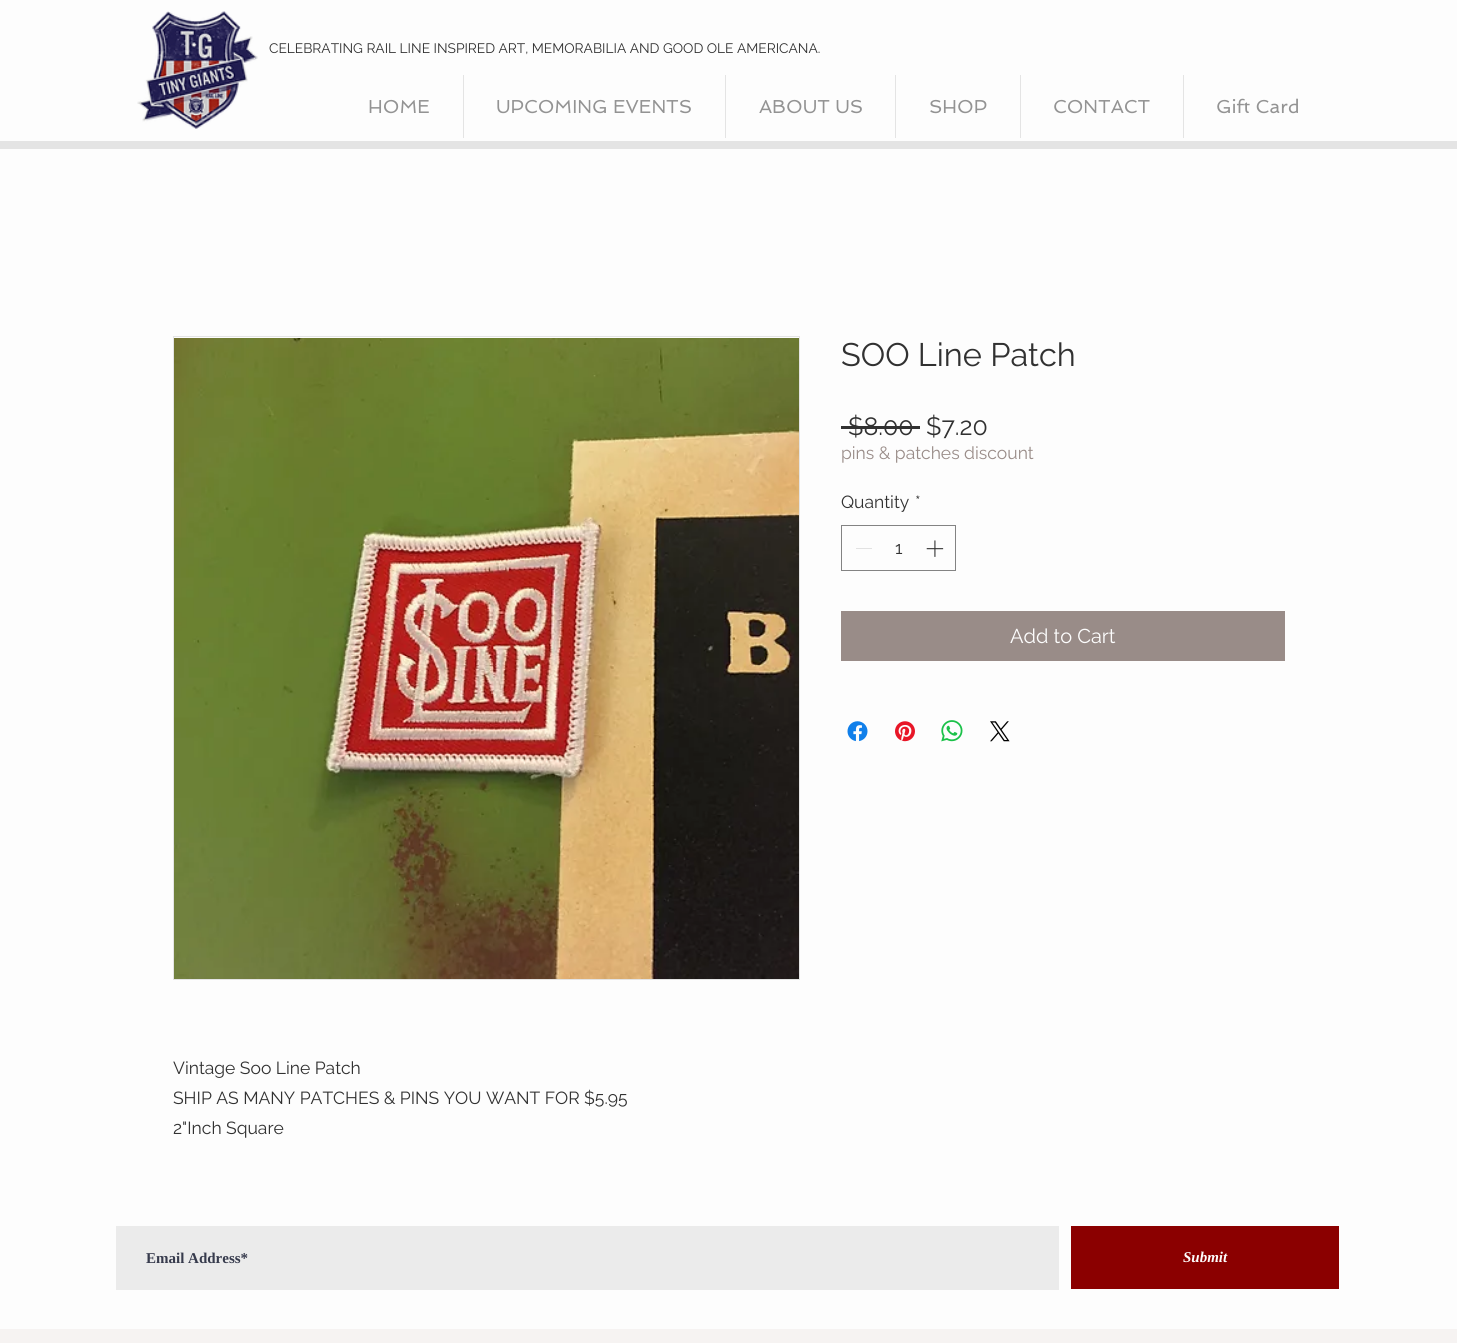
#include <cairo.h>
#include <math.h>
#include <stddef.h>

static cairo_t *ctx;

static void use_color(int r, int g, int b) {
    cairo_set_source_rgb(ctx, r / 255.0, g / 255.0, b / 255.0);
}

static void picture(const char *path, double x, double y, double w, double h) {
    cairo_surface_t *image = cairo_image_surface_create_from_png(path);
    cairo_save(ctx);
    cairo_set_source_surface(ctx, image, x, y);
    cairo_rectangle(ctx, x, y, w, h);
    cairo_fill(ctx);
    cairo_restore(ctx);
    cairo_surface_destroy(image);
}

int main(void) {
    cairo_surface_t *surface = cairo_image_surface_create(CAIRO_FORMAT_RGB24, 1457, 1343);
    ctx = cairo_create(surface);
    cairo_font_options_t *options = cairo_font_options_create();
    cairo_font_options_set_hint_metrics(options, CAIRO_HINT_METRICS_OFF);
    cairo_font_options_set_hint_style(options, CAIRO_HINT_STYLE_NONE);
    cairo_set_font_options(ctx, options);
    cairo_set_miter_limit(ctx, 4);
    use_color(253, 253, 253);
    cairo_paint(ctx);
    picture("img1.png", 137, 11, 121, 118);
    cairo_select_font_face(ctx, "Raleway", CAIRO_FONT_SLANT_NORMAL, CAIRO_FONT_WEIGHT_NORMAL);
    cairo_set_font_size(ctx, 13.75);
    use_color(49, 49, 49);
    cairo_move_to(ctx, 269, 53);
    cairo_show_text(ctx, "CELEBRATING RAIL LINE INSPIRED ART, MEMORABILIA AND GOOD OLE AMERICANA.");
    cairo_select_font_face(ctx, "Spinnaker", CAIRO_FONT_SLANT_NORMAL, CAIRO_FONT_WEIGHT_NORMAL);
    cairo_set_font_size(ctx, 18.75);
    use_color(147, 147, 147);
    cairo_move_to(ctx, 368, 113);
    cairo_show_text(ctx, "HOME");
    use_color(228, 228, 228);
    cairo_rectangle(ctx, 463, 75, 1, 63);
    cairo_fill(ctx);
    use_color(147, 147, 147);
    cairo_move_to(ctx, 496, 113);
    cairo_show_text(ctx, "UPCOMING EVENTS");
    use_color(228, 228, 228);
    cairo_rectangle(ctx, 725, 75, 1, 63);
    cairo_fill(ctx);
    use_color(147, 147, 147);
    cairo_move_to(ctx, 759, 113);
    cairo_show_text(ctx, "ABOUT US");
    use_color(228, 228, 228);
    cairo_rectangle(ctx, 895, 75, 1, 63);
    cairo_fill(ctx);
    use_color(147, 147, 147);
    cairo_move_to(ctx, 929, 113);
    cairo_show_text(ctx, "SHOP");
    use_color(228, 228, 228);
    cairo_rectangle(ctx, 1020, 75, 1, 63);
    cairo_fill(ctx);
    use_color(147, 147, 147);
    cairo_move_to(ctx, 1053, 113);
    cairo_show_text(ctx, "CONTACT");
    use_color(228, 228, 228);
    cairo_rectangle(ctx, 1183, 75, 1, 63);
    cairo_fill(ctx);
    use_color(147, 147, 147);
    cairo_move_to(ctx, 1216, 113);
    cairo_show_text(ctx, "Gift Card");
    use_color(228, 228, 228);
    cairo_rectangle(ctx, 0, 141, 1457, 8);
    cairo_fill(ctx);
    cairo_select_font_face(ctx, "Raleway", CAIRO_FONT_SLANT_NORMAL, CAIRO_FONT_WEIGHT_NORMAL);
    cairo_set_font_size(ctx, 32.5);
    use_color(49, 49, 49);
    cairo_move_to(ctx, 841, 366);
    cairo_show_text(ctx, "SOO Line Patch");
    cairo_set_font_size(ctx, 25);
    cairo_move_to(ctx, 848, 435);
    cairo_show_text(ctx, "$8.00");
    cairo_rectangle(ctx, 841, 426, 79, 3);
    cairo_fill(ctx);
    cairo_move_to(ctx, 926, 435);
    cairo_show_text(ctx, "$7.20");
    cairo_set_font_size(ctx, 17.5);
    use_color(153, 140, 136);
    cairo_move_to(ctx, 841, 459);
    cairo_show_text(ctx, "pins & patches discount");
    use_color(49, 49, 49);
    cairo_move_to(ctx, 841, 508);
    cairo_show_text(ctx, "Quantity");
    cairo_move_to(ctx, 915, 508);
    cairo_show_text(ctx, "*");
    cairo_rectangle(ctx, 841.5, 525.5, 114, 45);
    use_color(131, 131, 131);
    cairo_set_line_width(ctx, 1);
    cairo_stroke(ctx);
    use_color(226, 226, 226);
    cairo_rectangle(ctx, 856, 548, 16, 1);
    cairo_fill(ctx);
    use_color(49, 49, 49);
    cairo_move_to(ctx, 895, 554);
    cairo_show_text(ctx, "1");
    picture("img2.png", 926, 540, 18, 17);
    use_color(153, 140, 136);
    cairo_rectangle(ctx, 841, 611, 444, 50);
    cairo_fill(ctx);
    cairo_set_font_size(ctx, 20);
    use_color(253, 253, 253);
    cairo_move_to(ctx, 1010, 643);
    cairo_show_text(ctx, "Add to Cart");
    picture("img3.png", 847, 721, 21, 21);
    picture("img4.png", 895, 721, 20, 21);
    picture("img5.png", 941, 720, 22, 22);
    picture("img6.png", 990, 721, 20, 21);
    cairo_rectangle(ctx, 173.5, 336.5, 626, 643);
    use_color(228, 228, 228);
    cairo_stroke(ctx);
    picture("img7.png", 174, 338, 625, 641);
    cairo_set_font_size(ctx, 17.5);
    use_color(49, 49, 49);
    cairo_move_to(ctx, 173, 1074);
    cairo_show_text(ctx, "Vintage Soo Line Patch");
    cairo_move_to(ctx, 173, 1104);
    cairo_show_text(ctx, "SHIP AS MANY PATCHES & PINS YOU WANT FOR $5.95");
    cairo_move_to(ctx, 173, 1134);
    cairo_show_text(ctx, "2\"Inch Square");
    use_color(235, 235, 235);
    cairo_rectangle(ctx, 116, 1226, 943, 64);
    cairo_fill(ctx);
    cairo_select_font_face(ctx, "Liberation Serif", CAIRO_FONT_SLANT_NORMAL, CAIRO_FONT_WEIGHT_BOLD);
    cairo_set_font_size(ctx, 15);
    use_color(55, 59, 77);
    cairo_move_to(ctx, 146, 1263);
    cairo_show_text(ctx, "Email Address*");
    use_color(139, 0, 0);
    cairo_rectangle(ctx, 1071, 1226, 268, 63);
    cairo_fill(ctx);
    cairo_select_font_face(ctx, "Liberation Serif", CAIRO_FONT_SLANT_ITALIC, CAIRO_FONT_WEIGHT_BOLD);
    use_color(253, 253, 253);
    cairo_move_to(ctx, 1183, 1262);
    cairo_show_text(ctx, "Submit");
    use_color(246, 243, 242);
    cairo_rectangle(ctx, 0, 1329, 1457, 14);
    cairo_fill(ctx);
    cairo_surface_write_to_png(surface, "result.png");
    cairo_font_options_destroy(options);
    cairo_destroy(ctx);
    cairo_surface_destroy(surface);
    return 0;
}
